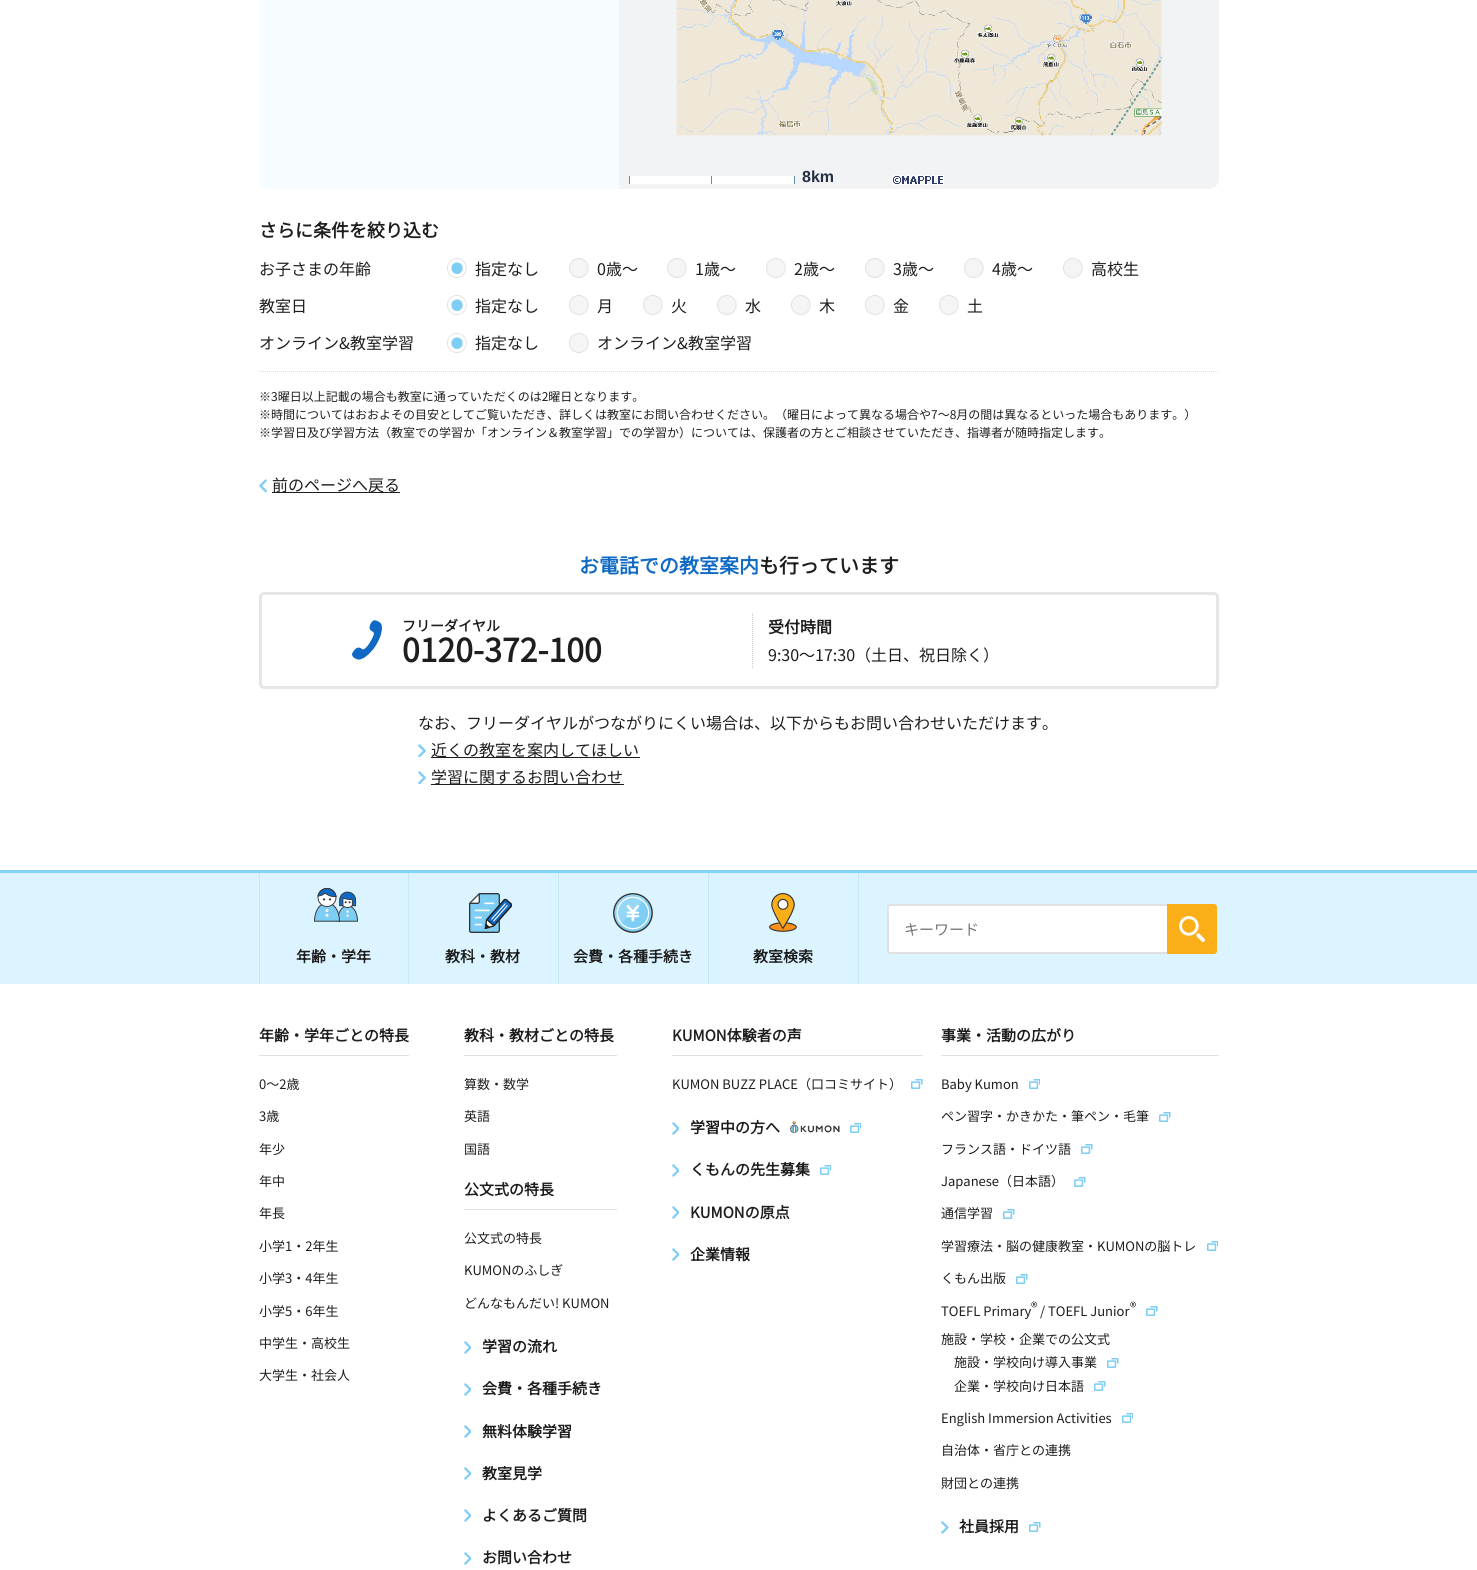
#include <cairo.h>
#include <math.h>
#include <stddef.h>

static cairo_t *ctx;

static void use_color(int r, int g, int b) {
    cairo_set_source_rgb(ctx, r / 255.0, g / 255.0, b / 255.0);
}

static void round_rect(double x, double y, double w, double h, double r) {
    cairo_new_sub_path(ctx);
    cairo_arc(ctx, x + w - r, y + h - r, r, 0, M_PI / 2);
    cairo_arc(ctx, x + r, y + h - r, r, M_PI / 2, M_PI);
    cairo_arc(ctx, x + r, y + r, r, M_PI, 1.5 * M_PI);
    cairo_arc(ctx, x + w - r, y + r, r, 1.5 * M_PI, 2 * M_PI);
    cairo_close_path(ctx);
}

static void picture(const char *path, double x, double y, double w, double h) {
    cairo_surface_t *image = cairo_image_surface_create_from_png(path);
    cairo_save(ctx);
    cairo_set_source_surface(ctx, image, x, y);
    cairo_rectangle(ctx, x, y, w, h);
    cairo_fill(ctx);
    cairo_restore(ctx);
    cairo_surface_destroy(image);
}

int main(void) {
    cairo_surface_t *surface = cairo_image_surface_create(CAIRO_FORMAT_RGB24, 1477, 1570);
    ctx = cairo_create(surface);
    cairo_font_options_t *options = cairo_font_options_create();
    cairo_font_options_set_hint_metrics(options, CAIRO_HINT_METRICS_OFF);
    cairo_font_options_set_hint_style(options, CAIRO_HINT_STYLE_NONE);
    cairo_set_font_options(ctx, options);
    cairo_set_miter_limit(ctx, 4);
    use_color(255, 255, 255);
    cairo_paint(ctx);
    use_color(246, 252, 255);
    cairo_new_path(ctx);
    cairo_move_to(ctx, 269, -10);
    cairo_line_to(ctx, 619, -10);
    cairo_line_to(ctx, 619, 189);
    cairo_line_to(ctx, 269, 189);
    cairo_curve_to(ctx, 263.5, 189, 259, 184.5, 259, 179);
    cairo_line_to(ctx, 259, 0);
    cairo_curve_to(ctx, 259, -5.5, 263.5, -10, 269, -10);
    cairo_close_path(ctx);
    cairo_fill(ctx);
    picture("img1.png", 619, 0, 600, 189);
    picture("img2.png", 676, 0, 486, 136);
    use_color(107, 140, 165);
    cairo_rectangle(ctx, 629, 176, 1, 8);
    cairo_fill(ctx);
    use_color(255, 255, 255);
    cairo_rectangle(ctx, 630, 176, 81, 8);
    cairo_fill(ctx);
    use_color(107, 140, 165);
    cairo_rectangle(ctx, 711, 176, 1, 8);
    cairo_fill(ctx);
    use_color(255, 255, 255);
    cairo_rectangle(ctx, 712, 176, 82, 8);
    cairo_fill(ctx);
    use_color(107, 140, 165);
    cairo_rectangle(ctx, 794, 176, 1, 8);
    cairo_fill(ctx);
    cairo_select_font_face(ctx, "Liberation Sans", CAIRO_FONT_SLANT_NORMAL, CAIRO_FONT_WEIGHT_BOLD);
    cairo_set_font_size(ctx, 16);
    use_color(37, 48, 70);
    cairo_move_to(ctx, 802, 182);
    cairo_show_text(ctx, "8km");
    picture("img3.png", 892, 175, 52, 10);
    cairo_new_path(ctx);
    cairo_move_to(ctx, 259, 371.5);
    cairo_line_to(ctx, 1219, 371.5);
    use_color(222, 222, 222);
    cairo_set_line_width(ctx, 1);
    cairo_set_dash(ctx, (double[]){1, 1}, 2, 0);
    cairo_stroke(ctx);
    cairo_select_font_face(ctx, "Noto Sans JP", CAIRO_FONT_SLANT_NORMAL, CAIRO_FONT_WEIGHT_BOLD);
    cairo_set_font_size(ctx, 18);
    use_color(30, 30, 30);
    cairo_move_to(ctx, 259, 237);
    cairo_show_text(ctx, "さらに条件を絞り込む");
    cairo_select_font_face(ctx, "Noto Sans JP Thin", CAIRO_FONT_SLANT_NORMAL, CAIRO_FONT_WEIGHT_NORMAL);
    cairo_set_font_size(ctx, 16);
    cairo_move_to(ctx, 259, 275);
    cairo_show_text(ctx, "お子さまの年齢");
    picture("img4.png", 447, 258, 20, 20);
    cairo_move_to(ctx, 475, 275);
    cairo_show_text(ctx, "指定なし");
    picture("img5.png", 569, 258, 20, 20);
    cairo_move_to(ctx, 597, 275);
    cairo_show_text(ctx, "0歳〜");
    picture("img6.png", 667, 258, 20, 20);
    cairo_move_to(ctx, 695, 275);
    cairo_show_text(ctx, "1歳〜");
    picture("img5.png", 766, 258, 20, 20);
    cairo_move_to(ctx, 794, 275);
    cairo_show_text(ctx, "2歳〜");
    picture("img6.png", 865, 258, 20, 20);
    cairo_move_to(ctx, 893, 275);
    cairo_show_text(ctx, "3歳〜");
    picture("img6.png", 964, 258, 20, 20);
    cairo_move_to(ctx, 992, 275);
    cairo_show_text(ctx, "4歳〜");
    picture("img5.png", 1063, 258, 20, 20);
    cairo_move_to(ctx, 1091, 275);
    cairo_show_text(ctx, "高校生");
    cairo_move_to(ctx, 259, 312);
    cairo_show_text(ctx, "教室日");
    picture("img4.png", 447, 295, 20, 20);
    cairo_move_to(ctx, 475, 312);
    cairo_show_text(ctx, "指定なし");
    picture("img5.png", 569, 295, 20, 20);
    cairo_move_to(ctx, 597, 312);
    cairo_show_text(ctx, "月");
    picture("img6.png", 643, 295, 20, 20);
    cairo_move_to(ctx, 671, 312);
    cairo_show_text(ctx, "火");
    picture("img6.png", 717, 295, 20, 20);
    cairo_move_to(ctx, 745, 312);
    cairo_show_text(ctx, "水");
    picture("img5.png", 791, 295, 20, 20);
    cairo_move_to(ctx, 819, 312);
    cairo_show_text(ctx, "木");
    picture("img6.png", 865, 295, 20, 20);
    cairo_move_to(ctx, 893, 312);
    cairo_show_text(ctx, "金");
    picture("img5.png", 939, 295, 20, 20);
    cairo_move_to(ctx, 967, 312);
    cairo_show_text(ctx, "土");
    cairo_move_to(ctx, 259, 349);
    cairo_show_text(ctx, "オンライン&教室学習");
    picture("img4.png", 447, 333, 20, 20);
    cairo_move_to(ctx, 475, 349);
    cairo_show_text(ctx, "指定なし");
    picture("img5.png", 569, 333, 20, 20);
    cairo_move_to(ctx, 597, 349);
    cairo_show_text(ctx, "オンライン&教室学習");
    cairo_set_font_size(ctx, 12);
    cairo_move_to(ctx, 259, 401);
    cairo_show_text(ctx, "※3曜日以上記載の場合も教室に通っていただくのは2曜日となります。");
    cairo_move_to(ctx, 259, 419);
    cairo_show_text(ctx, "※時間についてはおおよその目安としてご覧いただき、詳しくは教室にお問い合わせください。（曜日によって異なる場合や7～8月の間は異なるといった場合もあります。）");
    cairo_move_to(ctx, 259, 437);
    cairo_show_text(ctx, "※学習日及び学習方法（教室での学習か「オンライン＆教室学習」での学習か）については、保護者の方とご相談させていただき、指導者が随時指定します。");
    picture("img7.png", 259, 479, 8, 14);
    cairo_rectangle(ctx, 272, 492, 128, 1);
    cairo_fill(ctx);
    cairo_set_font_size(ctx, 16);
    cairo_move_to(ctx, 272, 491);
    cairo_show_text(ctx, "前のページへ戻る");
    cairo_select_font_face(ctx, "Noto Sans JP", CAIRO_FONT_SLANT_NORMAL, CAIRO_FONT_WEIGHT_BOLD);
    cairo_set_font_size(ctx, 20);
    use_color(16, 105, 196);
    cairo_move_to(ctx, 579, 573);
    cairo_show_text(ctx, "お電話での教室案内");
    use_color(30, 30, 30);
    cairo_move_to(ctx, 759, 573);
    cairo_show_text(ctx, "も行っています");
    round_rect(260.5, 593.5, 957, 94, 3.5);
    use_color(230, 230, 230);
    cairo_set_line_width(ctx, 3);
    cairo_set_dash(ctx, NULL, 0, 0);
    cairo_stroke(ctx);
    cairo_new_path(ctx);
    cairo_move_to(ctx, 752.5, 613);
    cairo_line_to(ctx, 752.5, 668);
    use_color(204, 204, 204);
    cairo_set_line_width(ctx, 1);
    cairo_set_dash(ctx, (double[]){1, 1}, 2, 0);
    cairo_stroke(ctx);
    picture("img8.png", 352, 620, 30, 40);
    cairo_set_font_size(ctx, 14);
    use_color(30, 30, 30);
    cairo_move_to(ctx, 402, 631);
    cairo_show_text(ctx, "フリーダイヤル");
    cairo_set_font_size(ctx, 32);
    cairo_move_to(ctx, 402, 662);
    cairo_show_text(ctx, "0120-372-100");
    cairo_set_font_size(ctx, 16);
    cairo_move_to(ctx, 768, 633);
    cairo_show_text(ctx, "受付時間");
    cairo_select_font_face(ctx, "Noto Sans JP Thin", CAIRO_FONT_SLANT_NORMAL, CAIRO_FONT_WEIGHT_NORMAL);
    cairo_move_to(ctx, 768, 661);
    cairo_show_text(ctx, "9:30～17:30（土日、祝日除く）");
    cairo_move_to(ctx, 418, 729);
    cairo_show_text(ctx, "なお、フリーダイヤルがつながりにくい場合は、以下からもお問い合わせいただけます。");
    picture("img9.png", 418, 744, 8, 13);
    cairo_rectangle(ctx, 431, 757, 209, 1);
    cairo_fill(ctx);
    cairo_move_to(ctx, 431, 756);
    cairo_show_text(ctx, "近くの教室を案内してほしい");
    picture("img9.png", 418, 771, 8, 13);
    cairo_rectangle(ctx, 431, 784, 193, 1);
    cairo_fill(ctx);
    cairo_move_to(ctx, 431, 783);
    cairo_show_text(ctx, "学習に関するお問い合わせ");
    use_color(220, 244, 255);
    cairo_rectangle(ctx, 0, 873, 1477, 111);
    cairo_fill(ctx);
    use_color(129, 213, 250);
    cairo_rectangle(ctx, 0, 870, 1477, 3);
    cairo_fill(ctx);
    use_color(255, 255, 255);
    cairo_new_path(ctx);
    cairo_move_to(ctx, 890, 904);
    cairo_line_to(ctx, 1167, 904);
    cairo_line_to(ctx, 1167, 954);
    cairo_line_to(ctx, 890, 954);
    cairo_curve_to(ctx, 888.5, 954, 887, 952.5, 887, 951);
    cairo_line_to(ctx, 887, 907);
    cairo_curve_to(ctx, 887, 905.5, 888.5, 904, 890, 904);
    cairo_close_path(ctx);
    cairo_fill(ctx);
    use_color(225, 225, 225);
    cairo_set_fill_rule(ctx, CAIRO_FILL_RULE_EVEN_ODD);
    cairo_new_path(ctx);
    cairo_move_to(ctx, 890, 904);
    cairo_line_to(ctx, 1167, 904);
    cairo_line_to(ctx, 1167, 954);
    cairo_line_to(ctx, 890, 954);
    cairo_curve_to(ctx, 888, 954, 887, 953, 887, 951);
    cairo_line_to(ctx, 887, 907);
    cairo_curve_to(ctx, 887, 905, 888, 904, 890, 904);
    cairo_close_path(ctx);
    cairo_move_to(ctx, 890, 906);
    cairo_line_to(ctx, 1167, 906);
    cairo_line_to(ctx, 1167, 952);
    cairo_line_to(ctx, 890, 952);
    cairo_line_to(ctx, 889, 952);
    cairo_line_to(ctx, 889, 914);
    cairo_curve_to(ctx, 889, 913, 888, 906, 890, 906);
    cairo_close_path(ctx);
    cairo_fill(ctx);
    cairo_set_font_size(ctx, 15);
    use_color(117, 117, 117);
    cairo_move_to(ctx, 904, 935);
    cairo_show_text(ctx, "キーワード");
    use_color(250, 175, 24);
    cairo_new_path(ctx);
    cairo_move_to(ctx, 1167, 904);
    cairo_line_to(ctx, 1214, 904);
    cairo_curve_to(ctx, 1215.5, 904, 1217, 905.5, 1217, 907);
    cairo_line_to(ctx, 1217, 951);
    cairo_curve_to(ctx, 1217, 952.5, 1215.5, 954, 1214, 954);
    cairo_line_to(ctx, 1167, 954);
    cairo_close_path(ctx);
    cairo_fill(ctx);
    picture("img10.png", 1179, 916, 26, 26);
    use_color(198, 231, 246);
    cairo_rectangle(ctx, 408, 873, 1, 111);
    cairo_fill(ctx);
    cairo_rectangle(ctx, 259, 873, 1, 111);
    cairo_fill(ctx);
    picture("img11.png", 314, 888, 44, 34);
    cairo_select_font_face(ctx, "Noto Sans JP", CAIRO_FONT_SLANT_NORMAL, CAIRO_FONT_WEIGHT_BOLD);
    use_color(30, 30, 30);
    cairo_move_to(ctx, 296, 962);
    cairo_show_text(ctx, "年齢・学年");
    use_color(198, 231, 246);
    cairo_rectangle(ctx, 558, 873, 1, 111);
    cairo_fill(ctx);
    picture("img12.png", 469, 893, 43, 40);
    use_color(30, 30, 30);
    cairo_move_to(ctx, 445, 962);
    cairo_show_text(ctx, "教科・教材");
    use_color(198, 231, 246);
    cairo_rectangle(ctx, 708, 873, 1, 111);
    cairo_fill(ctx);
    picture("img13.png", 613, 893, 40, 40);
    use_color(30, 30, 30);
    cairo_move_to(ctx, 573, 962);
    cairo_show_text(ctx, "会費・各種手続き");
    use_color(198, 231, 246);
    cairo_rectangle(ctx, 858, 873, 1, 111);
    cairo_fill(ctx);
    picture("img14.png", 769, 893, 28, 39);
    use_color(30, 30, 30);
    cairo_move_to(ctx, 753, 962);
    cairo_show_text(ctx, "教室検索");
    use_color(226, 226, 226);
    cairo_rectangle(ctx, 259, 1055, 150, 1);
    cairo_fill(ctx);
    use_color(30, 30, 30);
    cairo_move_to(ctx, 259, 1041);
    cairo_show_text(ctx, "年齢・学年ごとの特長");
    cairo_select_font_face(ctx, "Noto Sans JP Thin", CAIRO_FONT_SLANT_NORMAL, CAIRO_FONT_WEIGHT_NORMAL);
    cairo_set_font_size(ctx, 13);
    cairo_move_to(ctx, 259, 1089);
    cairo_show_text(ctx, "0～2歳");
    cairo_move_to(ctx, 259, 1121);
    cairo_show_text(ctx, "3歳");
    cairo_move_to(ctx, 259, 1154);
    cairo_show_text(ctx, "年少");
    cairo_move_to(ctx, 259, 1186);
    cairo_show_text(ctx, "年中");
    cairo_move_to(ctx, 259, 1218);
    cairo_show_text(ctx, "年長");
    cairo_move_to(ctx, 259, 1251);
    cairo_show_text(ctx, "小学1・2年生");
    cairo_move_to(ctx, 259, 1283);
    cairo_show_text(ctx, "小学3・4年生");
    cairo_move_to(ctx, 259, 1316);
    cairo_show_text(ctx, "小学5・6年生");
    cairo_move_to(ctx, 259, 1348);
    cairo_show_text(ctx, "中学生・高校生");
    cairo_move_to(ctx, 259, 1380);
    cairo_show_text(ctx, "大学生・社会人");
    use_color(226, 226, 226);
    cairo_rectangle(ctx, 464, 1055, 153, 1);
    cairo_fill(ctx);
    cairo_select_font_face(ctx, "Noto Sans JP", CAIRO_FONT_SLANT_NORMAL, CAIRO_FONT_WEIGHT_BOLD);
    cairo_set_font_size(ctx, 15);
    use_color(30, 30, 30);
    cairo_move_to(ctx, 464, 1041);
    cairo_show_text(ctx, "教科・教材ごとの特長");
    cairo_select_font_face(ctx, "Noto Sans JP Thin", CAIRO_FONT_SLANT_NORMAL, CAIRO_FONT_WEIGHT_NORMAL);
    cairo_set_font_size(ctx, 13);
    cairo_move_to(ctx, 464, 1089);
    cairo_show_text(ctx, "算数・数学");
    cairo_move_to(ctx, 464, 1121);
    cairo_show_text(ctx, "英語");
    cairo_move_to(ctx, 464, 1154);
    cairo_show_text(ctx, "国語");
    use_color(226, 226, 226);
    cairo_rectangle(ctx, 464, 1209, 153, 1);
    cairo_fill(ctx);
    cairo_select_font_face(ctx, "Noto Sans JP", CAIRO_FONT_SLANT_NORMAL, CAIRO_FONT_WEIGHT_BOLD);
    cairo_set_font_size(ctx, 15);
    use_color(30, 30, 30);
    cairo_move_to(ctx, 464, 1195);
    cairo_show_text(ctx, "公文式の特長");
    cairo_select_font_face(ctx, "Noto Sans JP Thin", CAIRO_FONT_SLANT_NORMAL, CAIRO_FONT_WEIGHT_NORMAL);
    cairo_set_font_size(ctx, 13);
    cairo_move_to(ctx, 464, 1243);
    cairo_show_text(ctx, "公文式の特長");
    cairo_move_to(ctx, 464, 1275);
    cairo_show_text(ctx, "KUMONのふしぎ");
    cairo_move_to(ctx, 464, 1308);
    cairo_show_text(ctx, "どんなもんだい! KUMON");
    picture("img15.png", 464, 1341, 7, 13);
    cairo_select_font_face(ctx, "Noto Sans JP", CAIRO_FONT_SLANT_NORMAL, CAIRO_FONT_WEIGHT_BOLD);
    cairo_set_font_size(ctx, 15);
    cairo_move_to(ctx, 482, 1352);
    cairo_show_text(ctx, "学習の流れ");
    picture("img15.png", 464, 1383, 7, 13);
    cairo_move_to(ctx, 482, 1394);
    cairo_show_text(ctx, "会費・各種手続き");
    picture("img15.png", 464, 1425, 7, 13);
    cairo_move_to(ctx, 482, 1437);
    cairo_show_text(ctx, "無料体験学習");
    picture("img15.png", 464, 1467, 7, 13);
    cairo_move_to(ctx, 482, 1479);
    cairo_show_text(ctx, "教室見学");
    picture("img15.png", 464, 1509, 7, 13);
    cairo_move_to(ctx, 482, 1521);
    cairo_show_text(ctx, "よくあるご質問");
    picture("img15.png", 464, 1552, 7, 13);
    cairo_move_to(ctx, 482, 1563);
    cairo_show_text(ctx, "お問い合わせ");
    use_color(226, 226, 226);
    cairo_rectangle(ctx, 672, 1055, 251, 1);
    cairo_fill(ctx);
    use_color(30, 30, 30);
    cairo_move_to(ctx, 672, 1041);
    cairo_show_text(ctx, "KUMON体験者の声");
    cairo_select_font_face(ctx, "Noto Sans JP Thin", CAIRO_FONT_SLANT_NORMAL, CAIRO_FONT_WEIGHT_NORMAL);
    cairo_set_font_size(ctx, 13);
    cairo_move_to(ctx, 672, 1089);
    cairo_show_text(ctx, "KUMON BUZZ PLACE（口コミサイト）");
    picture("img16.png", 911, 1079, 12, 10);
    picture("img15.png", 672, 1122, 7, 13);
    cairo_select_font_face(ctx, "Noto Sans JP", CAIRO_FONT_SLANT_NORMAL, CAIRO_FONT_WEIGHT_BOLD);
    cairo_set_font_size(ctx, 15);
    cairo_move_to(ctx, 690, 1133);
    cairo_show_text(ctx, "学習中の方へ");
    picture("img17.png", 790, 1121, 50, 12);
    picture("img18.png", 850, 1123, 11, 10);
    picture("img15.png", 672, 1164, 7, 13);
    cairo_move_to(ctx, 690, 1175);
    cairo_show_text(ctx, "くもんの先生募集");
    picture("img18.png", 820, 1165, 11, 10);
    picture("img15.png", 672, 1206, 7, 13);
    cairo_move_to(ctx, 690, 1218);
    cairo_show_text(ctx, "KUMONの原点");
    picture("img15.png", 672, 1248, 7, 13);
    cairo_move_to(ctx, 690, 1260);
    cairo_show_text(ctx, "企業情報");
    use_color(226, 226, 226);
    cairo_rectangle(ctx, 941, 1055, 278, 1);
    cairo_fill(ctx);
    use_color(30, 30, 30);
    cairo_move_to(ctx, 941, 1041);
    cairo_show_text(ctx, "事業・活動の広がり");
    cairo_select_font_face(ctx, "Noto Sans JP Thin", CAIRO_FONT_SLANT_NORMAL, CAIRO_FONT_WEIGHT_NORMAL);
    cairo_set_font_size(ctx, 13);
    cairo_move_to(ctx, 941, 1089);
    cairo_show_text(ctx, "Baby Kumon");
    picture("img18.png", 1029, 1079, 11, 10);
    cairo_move_to(ctx, 941, 1121);
    cairo_show_text(ctx, "ペン習字・かきかた・筆ペン・毛筆");
    picture("img16.png", 1159, 1112, 12, 10);
    cairo_move_to(ctx, 941, 1154);
    cairo_show_text(ctx, "フランス語・ドイツ語");
    picture("img16.png", 1081, 1144, 12, 10);
    cairo_move_to(ctx, 941, 1186);
    cairo_show_text(ctx, "Japanese（日本語）");
    picture("img16.png", 1074, 1177, 12, 10);
    cairo_move_to(ctx, 941, 1218);
    cairo_show_text(ctx, "通信学習");
    picture("img16.png", 1003, 1209, 12, 10);
    cairo_move_to(ctx, 941, 1251);
    cairo_show_text(ctx, "学習療法・脳の健康教室・KUMONの脳トレ");
    picture("img18.png", 1207, 1241, 11, 10);
    cairo_move_to(ctx, 941, 1283);
    cairo_show_text(ctx, "くもん出版");
    picture("img16.png", 1016, 1274, 12, 10);
    cairo_move_to(ctx, 941, 1316);
    cairo_show_text(ctx, "TOEFL Primary");
    cairo_move_to(ctx, 1031, 1312);
    cairo_show_text(ctx, "®");
    cairo_move_to(ctx, 1040, 1316);
    cairo_show_text(ctx, "/ TOEFL Junior");
    cairo_move_to(ctx, 1130, 1312);
    cairo_show_text(ctx, "®");
    picture("img16.png", 1146, 1306, 12, 10);
    cairo_move_to(ctx, 941, 1344);
    cairo_show_text(ctx, "施設・学校・企業での公文式");
    cairo_move_to(ctx, 954, 1367);
    cairo_show_text(ctx, "施設・学校向け導入事業");
    picture("img16.png", 1107, 1358, 12, 10);
    cairo_move_to(ctx, 954, 1391);
    cairo_show_text(ctx, "企業・学校向け日本語");
    picture("img16.png", 1094, 1381, 12, 10);
    cairo_move_to(ctx, 941, 1423);
    cairo_show_text(ctx, "English Immersion Activities");
    picture("img18.png", 1122, 1413, 11, 10);
    cairo_move_to(ctx, 941, 1455);
    cairo_show_text(ctx, "自治体・省庁との連携");
    cairo_move_to(ctx, 941, 1488);
    cairo_show_text(ctx, "財団との連携");
    picture("img19.png", 941, 1521, 8, 13);
    cairo_select_font_face(ctx, "Noto Sans JP", CAIRO_FONT_SLANT_NORMAL, CAIRO_FONT_WEIGHT_BOLD);
    cairo_set_font_size(ctx, 15);
    cairo_move_to(ctx, 959, 1532);
    cairo_show_text(ctx, "社員採用");
    picture("img16.png", 1029, 1522, 12, 10);
    cairo_surface_write_to_png(surface, "result.png");
    cairo_font_options_destroy(options);
    cairo_destroy(ctx);
    cairo_surface_destroy(surface);
    return 0;
}
